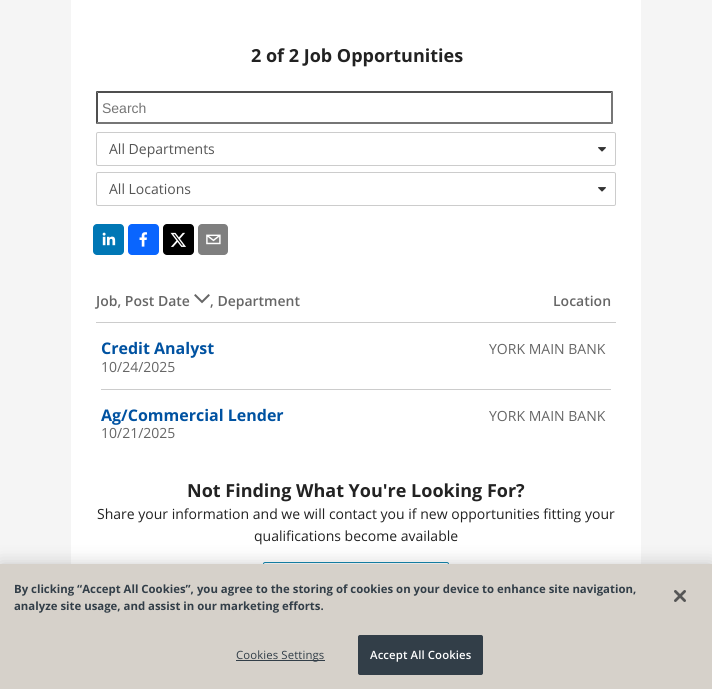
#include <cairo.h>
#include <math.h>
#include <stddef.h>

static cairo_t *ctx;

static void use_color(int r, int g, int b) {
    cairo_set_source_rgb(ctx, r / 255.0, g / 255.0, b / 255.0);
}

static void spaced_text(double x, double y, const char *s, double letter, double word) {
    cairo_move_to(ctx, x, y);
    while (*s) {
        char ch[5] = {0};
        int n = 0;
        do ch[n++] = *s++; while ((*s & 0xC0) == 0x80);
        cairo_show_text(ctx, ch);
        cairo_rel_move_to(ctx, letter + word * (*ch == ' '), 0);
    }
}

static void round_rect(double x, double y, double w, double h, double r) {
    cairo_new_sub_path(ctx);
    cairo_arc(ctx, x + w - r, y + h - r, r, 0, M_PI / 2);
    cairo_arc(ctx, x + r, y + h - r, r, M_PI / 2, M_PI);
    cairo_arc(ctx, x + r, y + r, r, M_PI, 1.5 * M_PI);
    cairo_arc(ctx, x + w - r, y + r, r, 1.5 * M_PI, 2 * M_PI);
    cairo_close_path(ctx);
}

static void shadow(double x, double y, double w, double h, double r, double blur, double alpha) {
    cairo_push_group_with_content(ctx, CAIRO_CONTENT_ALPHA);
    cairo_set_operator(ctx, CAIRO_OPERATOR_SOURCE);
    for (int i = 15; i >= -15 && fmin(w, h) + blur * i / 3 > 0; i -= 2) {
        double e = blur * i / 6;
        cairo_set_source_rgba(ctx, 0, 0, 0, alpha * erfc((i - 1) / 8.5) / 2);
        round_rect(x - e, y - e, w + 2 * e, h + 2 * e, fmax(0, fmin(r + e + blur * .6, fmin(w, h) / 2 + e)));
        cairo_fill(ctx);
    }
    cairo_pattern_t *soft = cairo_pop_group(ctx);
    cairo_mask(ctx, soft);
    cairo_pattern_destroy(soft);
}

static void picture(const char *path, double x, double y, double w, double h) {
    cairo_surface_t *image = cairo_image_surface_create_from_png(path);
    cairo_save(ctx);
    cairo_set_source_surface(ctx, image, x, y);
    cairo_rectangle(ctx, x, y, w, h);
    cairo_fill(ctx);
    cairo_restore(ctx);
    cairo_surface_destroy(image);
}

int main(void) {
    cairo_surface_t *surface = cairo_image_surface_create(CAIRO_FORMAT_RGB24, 712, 689);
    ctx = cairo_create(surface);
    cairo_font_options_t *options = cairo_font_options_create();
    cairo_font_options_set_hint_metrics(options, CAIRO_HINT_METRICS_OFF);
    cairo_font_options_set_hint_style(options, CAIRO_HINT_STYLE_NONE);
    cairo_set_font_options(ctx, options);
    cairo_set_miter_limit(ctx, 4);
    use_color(245, 245, 245);
    cairo_paint(ctx);
    use_color(255, 255, 255);
    cairo_rectangle(ctx, 71, 0, 570, 564);
    cairo_fill(ctx);
    cairo_select_font_face(ctx, "Open Sans", CAIRO_FONT_SLANT_NORMAL, CAIRO_FONT_WEIGHT_BOLD);
    cairo_set_font_size(ctx, 18);
    use_color(34, 34, 34);
    cairo_move_to(ctx, 251, 62);
    cairo_show_text(ctx, "2 of 2 Job Opportunities");
    use_color(79, 79, 79);
    cairo_new_path(ctx);
    cairo_move_to(ctx, 96, 91);
    cairo_line_to(ctx, 613, 91);
    cairo_line_to(ctx, 611, 93);
    cairo_line_to(ctx, 98, 93);
    cairo_close_path(ctx);
    cairo_fill(ctx);
    use_color(118, 118, 118);
    cairo_new_path(ctx);
    cairo_move_to(ctx, 613, 91);
    cairo_line_to(ctx, 613, 124);
    cairo_line_to(ctx, 611, 122);
    cairo_line_to(ctx, 611, 93);
    cairo_close_path(ctx);
    cairo_fill(ctx);
    cairo_new_path(ctx);
    cairo_move_to(ctx, 613, 124);
    cairo_line_to(ctx, 96, 124);
    cairo_line_to(ctx, 98, 122);
    cairo_line_to(ctx, 611, 122);
    cairo_close_path(ctx);
    cairo_fill(ctx);
    use_color(79, 79, 79);
    cairo_new_path(ctx);
    cairo_move_to(ctx, 96, 124);
    cairo_line_to(ctx, 96, 91);
    cairo_line_to(ctx, 98, 93);
    cairo_line_to(ctx, 98, 122);
    cairo_close_path(ctx);
    cairo_fill(ctx);
    cairo_select_font_face(ctx, "Liberation Sans", CAIRO_FONT_SLANT_NORMAL, CAIRO_FONT_WEIGHT_NORMAL);
    cairo_set_font_size(ctx, 14);
    use_color(117, 117, 117);
    cairo_move_to(ctx, 102, 113);
    cairo_show_text(ctx, "Search");
    round_rect(96.5, 132.5, 519, 33, 1.5);
    use_color(204, 204, 204);
    cairo_set_line_width(ctx, 1);
    cairo_stroke(ctx);
    cairo_select_font_face(ctx, "Open Sans", CAIRO_FONT_SLANT_NORMAL, CAIRO_FONT_WEIGHT_NORMAL);
    use_color(85, 85, 85);
    cairo_move_to(ctx, 109, 154);
    cairo_show_text(ctx, "All Departments");
    picture("img1.png", 598, 147, 8, 5);
    round_rect(96.5, 172.5, 519, 33, 1.5);
    use_color(204, 204, 204);
    cairo_stroke(ctx);
    use_color(85, 85, 85);
    cairo_move_to(ctx, 109, 194);
    cairo_show_text(ctx, "All Locations");
    picture("img1.png", 598, 187, 8, 5);
    picture("img2.png", 93, 224, 31, 31);
    picture("img3.png", 128, 224, 31, 31);
    picture("img4.png", 163, 224, 31, 31);
    picture("img5.png", 198, 224, 30, 31);
    use_color(204, 204, 204);
    cairo_rectangle(ctx, 96, 322, 520, 1);
    cairo_fill(ctx);
    cairo_select_font_face(ctx, "Open Sans SemiBold", CAIRO_FONT_SLANT_NORMAL, CAIRO_FONT_WEIGHT_NORMAL);
    use_color(102, 102, 102);
    cairo_move_to(ctx, 96, 306);
    cairo_show_text(ctx, "Job, Post Date");
    picture("img6.png", 194, 294, 16, 10);
    cairo_move_to(ctx, 210, 306);
    cairo_show_text(ctx, ", Department");
    cairo_move_to(ctx, 553, 306);
    cairo_show_text(ctx, "Location");
    use_color(204, 204, 204);
    cairo_rectangle(ctx, 101, 389, 510, 1);
    cairo_fill(ctx);
    cairo_select_font_face(ctx, "Open Sans", CAIRO_FONT_SLANT_NORMAL, CAIRO_FONT_WEIGHT_BOLD);
    cairo_set_font_size(ctx, 16);
    use_color(0, 82, 161);
    cairo_move_to(ctx, 101, 354);
    cairo_show_text(ctx, "Credit Analyst");
    cairo_select_font_face(ctx, "Open Sans", CAIRO_FONT_SLANT_NORMAL, CAIRO_FONT_WEIGHT_NORMAL);
    cairo_set_font_size(ctx, 14);
    use_color(102, 102, 102);
    cairo_move_to(ctx, 101, 372);
    cairo_show_text(ctx, "10/24/2025");
    cairo_move_to(ctx, 489, 354);
    cairo_show_text(ctx, "YORK MAIN BANK");
    cairo_select_font_face(ctx, "Open Sans", CAIRO_FONT_SLANT_NORMAL, CAIRO_FONT_WEIGHT_BOLD);
    cairo_set_font_size(ctx, 16);
    use_color(0, 82, 161);
    cairo_move_to(ctx, 101, 421);
    cairo_show_text(ctx, "Ag/Commercial Lender");
    cairo_select_font_face(ctx, "Open Sans", CAIRO_FONT_SLANT_NORMAL, CAIRO_FONT_WEIGHT_NORMAL);
    cairo_set_font_size(ctx, 14);
    use_color(102, 102, 102);
    cairo_move_to(ctx, 101, 438);
    cairo_show_text(ctx, "10/21/2025");
    cairo_move_to(ctx, 489, 421);
    cairo_show_text(ctx, "YORK MAIN BANK");
    cairo_select_font_face(ctx, "Open Sans", CAIRO_FONT_SLANT_NORMAL, CAIRO_FONT_WEIGHT_BOLD);
    cairo_set_font_size(ctx, 18);
    use_color(34, 34, 34);
    cairo_move_to(ctx, 187, 497);
    cairo_show_text(ctx, "Not Finding What You're Looking For?");
    cairo_select_font_face(ctx, "Open Sans", CAIRO_FONT_SLANT_NORMAL, CAIRO_FONT_WEIGHT_NORMAL);
    cairo_set_font_size(ctx, 14);
    cairo_move_to(ctx, 97, 519);
    cairo_show_text(ctx, "Share your information and we will contact you if new opportunities fitting your");
    cairo_move_to(ctx, 254, 541);
    cairo_show_text(ctx, "qualifications become available");
    round_rect(263.5, 562.5, 185, 34, 1.5);
    use_color(21, 136, 175);
    cairo_stroke(ctx);
    use_color(0, 0, 0);
    shadow(0, 564, 712, 125, 0, 9, 0.2);
    use_color(214, 209, 202);
    cairo_rectangle(ctx, 0, 564, 712, 125);
    cairo_fill(ctx);
    cairo_select_font_face(ctx, "Open Sans", CAIRO_FONT_SLANT_NORMAL, CAIRO_FONT_WEIGHT_BOLD);
    cairo_set_font_size(ctx, 11.38);
    use_color(50, 62, 72);
    cairo_move_to(ctx, 14, 593);
    cairo_show_text(ctx, "By clicking “Accept All Cookies”, you agree to the storing of cookies on your device to enhance site navigation,");
    cairo_move_to(ctx, 14, 610);
    cairo_show_text(ctx, "analyze site usage, and assist in our marketing efforts.");
    cairo_rectangle(ctx, 236, 660, 89, 1);
    cairo_fill(ctx);
    cairo_select_font_face(ctx, "Open Sans", CAIRO_FONT_SLANT_NORMAL, CAIRO_FONT_WEIGHT_NORMAL);
    spaced_text(236, 659, "Cookies Settings", 0.1, 0);
    round_rect(358.5, 635.5, 124, 39, 1.5);
    cairo_fill_preserve(ctx);
    cairo_stroke(ctx);
    cairo_select_font_face(ctx, "Open Sans SemiBold", CAIRO_FONT_SLANT_NORMAL, CAIRO_FONT_WEIGHT_NORMAL);
    use_color(255, 255, 255);
    spaced_text(370, 659, "Accept All Cookies", 0.1, 0);
    picture("img7.png", 674, 590, 12, 12);
    cairo_surface_write_to_png(surface, "result.png");
    cairo_font_options_destroy(options);
    cairo_destroy(ctx);
    cairo_surface_destroy(surface);
    return 0;
}
